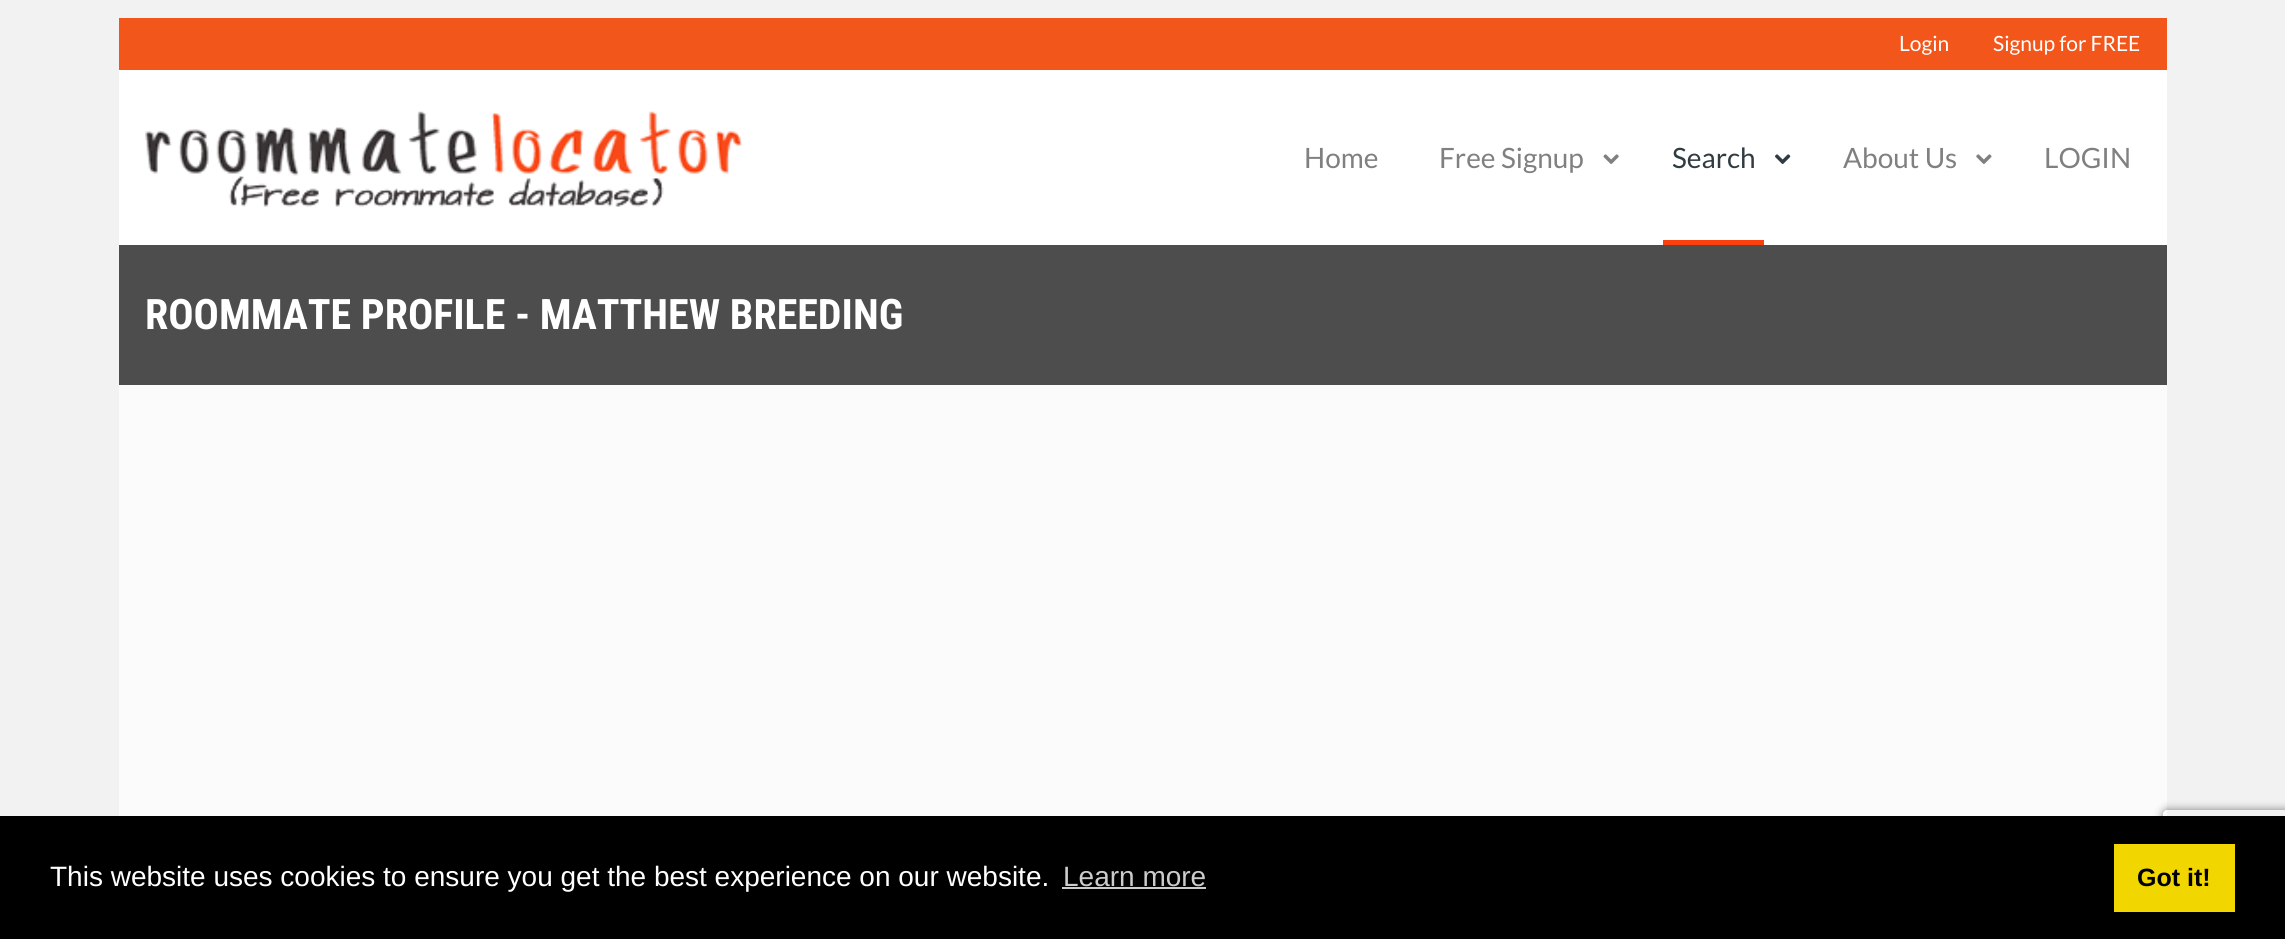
#include <cairo.h>
#include <math.h>
#include <stddef.h>

static cairo_t *ctx;

static void use_color(int r, int g, int b) {
    cairo_set_source_rgb(ctx, r / 255.0, g / 255.0, b / 255.0);
}

static void round_rect(double x, double y, double w, double h, double r) {
    cairo_new_sub_path(ctx);
    cairo_arc(ctx, x + w - r, y + h - r, r, 0, M_PI / 2);
    cairo_arc(ctx, x + r, y + h - r, r, M_PI / 2, M_PI);
    cairo_arc(ctx, x + r, y + r, r, M_PI, 1.5 * M_PI);
    cairo_arc(ctx, x + w - r, y + r, r, 1.5 * M_PI, 2 * M_PI);
    cairo_close_path(ctx);
}

static void shadow(double x, double y, double w, double h, double r, double blur, double alpha) {
    cairo_push_group_with_content(ctx, CAIRO_CONTENT_ALPHA);
    cairo_set_operator(ctx, CAIRO_OPERATOR_SOURCE);
    for (int i = 15; i >= -15 && fmin(w, h) + blur * i / 3 > 0; i -= 2) {
        double e = blur * i / 6;
        cairo_set_source_rgba(ctx, 0, 0, 0, alpha * erfc((i - 1) / 8.5) / 2);
        round_rect(x - e, y - e, w + 2 * e, h + 2 * e, fmax(0, fmin(r + e + blur * .6, fmin(w, h) / 2 + e)));
        cairo_fill(ctx);
    }
    cairo_pattern_t *soft = cairo_pop_group(ctx);
    cairo_mask(ctx, soft);
    cairo_pattern_destroy(soft);
}

static void picture(const char *path, double x, double y, double w, double h) {
    cairo_surface_t *image = cairo_image_surface_create_from_png(path);
    cairo_save(ctx);
    cairo_set_source_surface(ctx, image, x, y);
    cairo_rectangle(ctx, x, y, w, h);
    cairo_fill(ctx);
    cairo_restore(ctx);
    cairo_surface_destroy(image);
}

int main(void) {
    cairo_surface_t *surface = cairo_image_surface_create(CAIRO_FORMAT_RGB24, 2285, 939);
    ctx = cairo_create(surface);
    cairo_font_options_t *options = cairo_font_options_create();
    cairo_font_options_set_hint_metrics(options, CAIRO_HINT_METRICS_OFF);
    cairo_font_options_set_hint_style(options, CAIRO_HINT_STYLE_NONE);
    cairo_set_font_options(ctx, options);
    cairo_set_miter_limit(ctx, 4);
    use_color(242, 242, 242);
    cairo_paint(ctx);
    use_color(251, 251, 251);
    cairo_rectangle(ctx, 119, 385, 2048, 431);
    cairo_fill(ctx);
    use_color(255, 255, 255);
    cairo_rectangle(ctx, 119, 70, 2048, 175);
    cairo_fill(ctx);
    use_color(242, 86, 27);
    cairo_rectangle(ctx, 119, 18, 2048, 52);
    cairo_fill(ctx);
    cairo_select_font_face(ctx, "Lato", CAIRO_FONT_SLANT_NORMAL, CAIRO_FONT_WEIGHT_NORMAL);
    cairo_set_font_size(ctx, 21);
    use_color(255, 255, 255);
    cairo_move_to(ctx, 1899, 51);
    cairo_show_text(ctx, "Login");
    cairo_move_to(ctx, 1993, 51);
    cairo_show_text(ctx, "Signup for FREE");
    picture("img1.png", 145, 111, 597, 96);
    cairo_set_font_size(ctx, 28);
    use_color(128, 128, 128);
    cairo_move_to(ctx, 1304, 168);
    cairo_show_text(ctx, "Home");
    cairo_move_to(ctx, 1439, 168);
    cairo_show_text(ctx, "Free Signup");
    picture("img2.png", 1603, 154, 16, 10);
    use_color(249, 64, 13);
    cairo_rectangle(ctx, 1663, 240, 101, 5);
    cairo_fill(ctx);
    use_color(48, 60, 66);
    cairo_move_to(ctx, 1672, 168);
    cairo_show_text(ctx, "Search");
    picture("img3.png", 1775, 154, 16, 10);
    use_color(128, 128, 128);
    cairo_move_to(ctx, 1843, 168);
    cairo_show_text(ctx, "About Us");
    picture("img4.png", 1976, 154, 16, 10);
    cairo_move_to(ctx, 2044, 168);
    cairo_show_text(ctx, "LOGIN");
    use_color(77, 77, 77);
    cairo_rectangle(ctx, 119, 245, 2048, 140);
    cairo_fill(ctx);
    cairo_select_font_face(ctx, "Roboto Condensed", CAIRO_FONT_SLANT_NORMAL, CAIRO_FONT_WEIGHT_BOLD);
    cairo_set_font_size(ctx, 42);
    use_color(255, 255, 255);
    cairo_move_to(ctx, 145, 329);
    cairo_show_text(ctx, "ROOMMATE PROFILE - MATTHEW BREEDING");
    cairo_save(ctx);
    cairo_set_fill_rule(ctx, CAIRO_FILL_RULE_EVEN_ODD);
    cairo_new_path(ctx);
    cairo_move_to(ctx, 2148, 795);
    cairo_line_to(ctx, 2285, 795);
    cairo_line_to(ctx, 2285, 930);
    cairo_line_to(ctx, 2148, 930);
    cairo_close_path(ctx);
    cairo_move_to(ctx, 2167, 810);
    cairo_line_to(ctx, 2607, 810);
    cairo_curve_to(ctx, 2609, 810, 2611, 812, 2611, 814);
    cairo_line_to(ctx, 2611, 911);
    cairo_curve_to(ctx, 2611, 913, 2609, 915, 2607, 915);
    cairo_line_to(ctx, 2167, 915);
    cairo_curve_to(ctx, 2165, 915, 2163, 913, 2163, 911);
    cairo_line_to(ctx, 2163, 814);
    cairo_curve_to(ctx, 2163, 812, 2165, 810, 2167, 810);
    cairo_close_path(ctx);
    cairo_clip(ctx);
    use_color(128, 128, 128);
    shadow(2163, 810, 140, 105, 4, 4.5, 1);
    cairo_restore(ctx);
    use_color(0, 0, 0);
    cairo_rectangle(ctx, 0, 816, 2285, 123);
    cairo_fill(ctx);
    cairo_select_font_face(ctx, "Liberation Sans", CAIRO_FONT_SLANT_NORMAL, CAIRO_FONT_WEIGHT_NORMAL);
    cairo_set_font_size(ctx, 28);
    use_color(255, 255, 255);
    cairo_move_to(ctx, 50, 886);
    cairo_show_text(ctx, "This website uses cookies to ensure you get the best experience on our website.");
    use_color(204, 204, 204);
    cairo_move_to(ctx, 1063, 886);
    cairo_show_text(ctx, "Learn more");
    cairo_rectangle(ctx, 1062, 887, 144, 2);
    cairo_fill(ctx);
    use_color(241, 214, 0);
    cairo_rectangle(ctx, 2114, 844, 121, 68);
    cairo_fill(ctx);
    cairo_select_font_face(ctx, "Liberation Sans", CAIRO_FONT_SLANT_NORMAL, CAIRO_FONT_WEIGHT_BOLD);
    cairo_set_font_size(ctx, 25);
    use_color(0, 0, 0);
    cairo_move_to(ctx, 2137, 886);
    cairo_show_text(ctx, "Got it!");
    cairo_surface_write_to_png(surface, "result.png");
    cairo_font_options_destroy(options);
    cairo_destroy(ctx);
    cairo_surface_destroy(surface);
    return 0;
}
